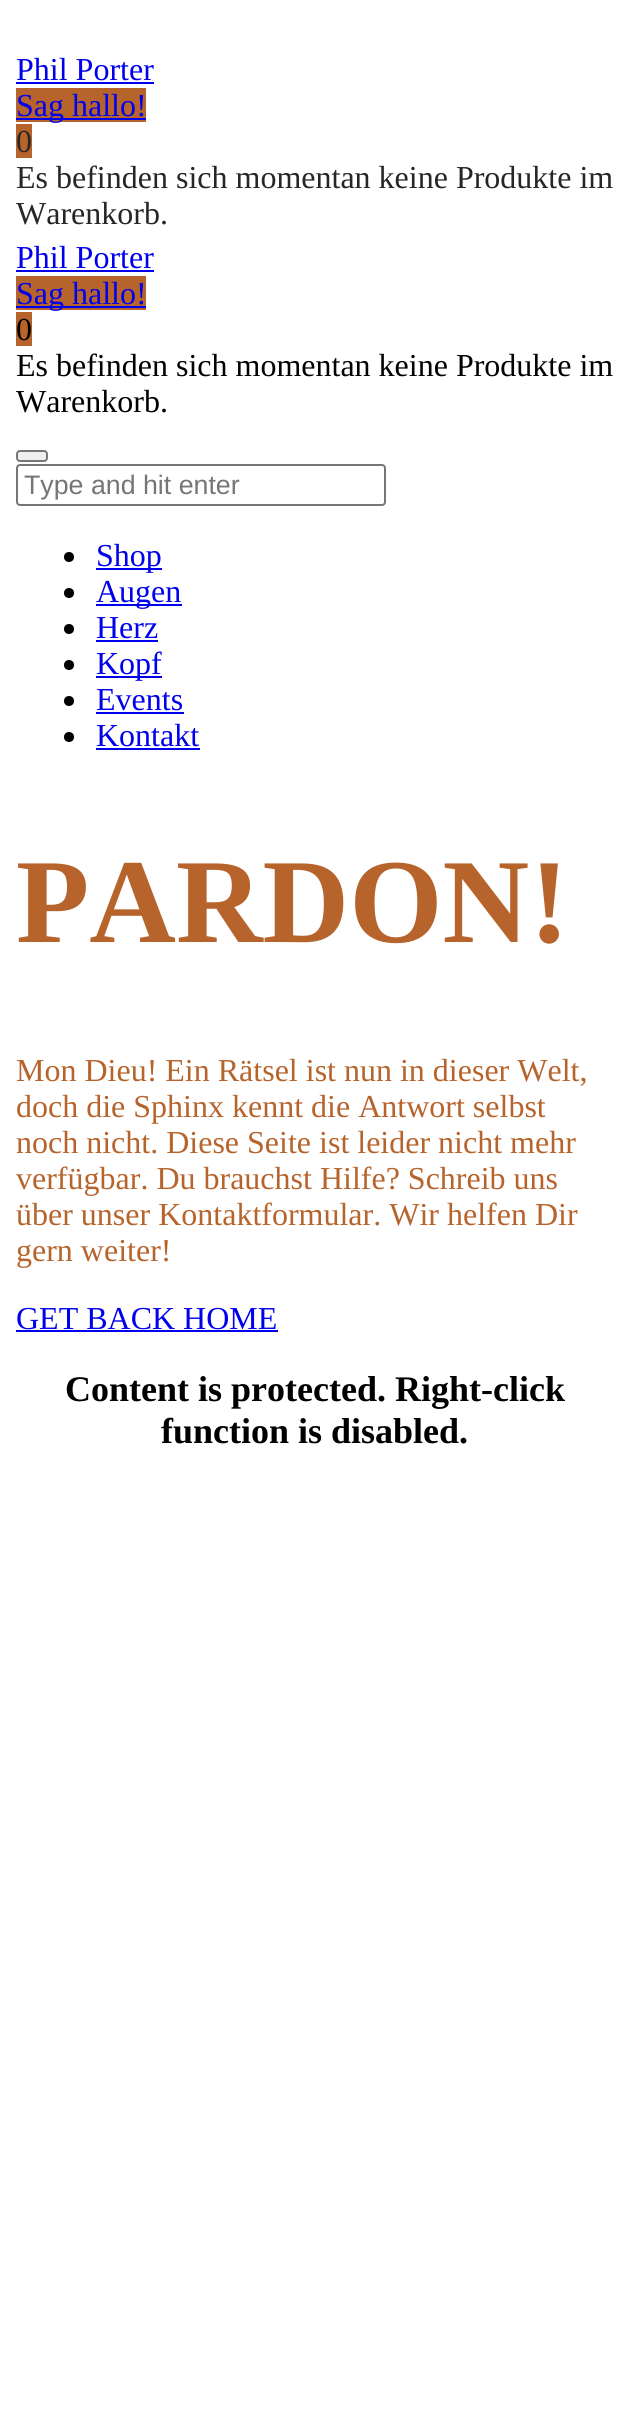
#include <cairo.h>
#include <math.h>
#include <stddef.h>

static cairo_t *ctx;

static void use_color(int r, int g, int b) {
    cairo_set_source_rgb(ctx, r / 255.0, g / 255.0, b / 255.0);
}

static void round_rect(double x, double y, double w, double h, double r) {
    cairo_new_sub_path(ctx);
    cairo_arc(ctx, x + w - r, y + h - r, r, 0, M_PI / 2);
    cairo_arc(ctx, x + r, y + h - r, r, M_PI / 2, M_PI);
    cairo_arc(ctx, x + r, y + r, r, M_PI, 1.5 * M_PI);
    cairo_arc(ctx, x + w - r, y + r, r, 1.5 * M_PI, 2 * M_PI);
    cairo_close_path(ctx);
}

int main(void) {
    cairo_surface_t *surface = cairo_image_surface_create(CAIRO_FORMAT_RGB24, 629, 2423);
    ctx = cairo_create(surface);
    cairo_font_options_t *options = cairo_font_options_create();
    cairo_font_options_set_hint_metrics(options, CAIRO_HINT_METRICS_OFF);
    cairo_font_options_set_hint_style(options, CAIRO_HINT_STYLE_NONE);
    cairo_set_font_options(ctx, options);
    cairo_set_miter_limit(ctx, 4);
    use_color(255, 255, 255);
    cairo_paint(ctx);
    cairo_select_font_face(ctx, "Liberation Serif", CAIRO_FONT_SLANT_NORMAL, CAIRO_FONT_WEIGHT_NORMAL);
    cairo_set_font_size(ctx, 32);
    use_color(0, 0, 238);
    cairo_move_to(ctx, 16, 80);
    cairo_show_text(ctx, "Phil Porter");
    cairo_rectangle(ctx, 16, 82, 138, 2);
    cairo_fill(ctx);
    use_color(183, 100, 44);
    cairo_rectangle(ctx, 16, 88, 130, 34);
    cairo_fill(ctx);
    use_color(0, 0, 238);
    cairo_rectangle(ctx, 16, 118, 130, 2);
    cairo_fill(ctx);
    cairo_move_to(ctx, 16, 116);
    cairo_show_text(ctx, "Sag hallo!");
    use_color(183, 100, 44);
    cairo_rectangle(ctx, 16, 124, 16, 34);
    cairo_fill(ctx);
    use_color(39, 38, 38);
    cairo_move_to(ctx, 16, 152);
    cairo_show_text(ctx, "0");
    cairo_move_to(ctx, 16, 188);
    cairo_show_text(ctx, "Es befinden sich momentan keine Produkte im");
    cairo_move_to(ctx, 16, 224);
    cairo_show_text(ctx, "Warenkorb.");
    use_color(0, 0, 238);
    cairo_move_to(ctx, 16, 268);
    cairo_show_text(ctx, "Phil Porter");
    cairo_rectangle(ctx, 16, 270, 138, 2);
    cairo_fill(ctx);
    use_color(183, 100, 44);
    cairo_rectangle(ctx, 16, 276, 130, 34);
    cairo_fill(ctx);
    use_color(0, 0, 238);
    cairo_rectangle(ctx, 16, 306, 130, 2);
    cairo_fill(ctx);
    cairo_move_to(ctx, 16, 304);
    cairo_show_text(ctx, "Sag hallo!");
    use_color(183, 100, 44);
    cairo_rectangle(ctx, 16, 312, 16, 34);
    cairo_fill(ctx);
    use_color(0, 0, 0);
    cairo_move_to(ctx, 16, 340);
    cairo_show_text(ctx, "0");
    cairo_move_to(ctx, 16, 376);
    cairo_show_text(ctx, "Es befinden sich momentan keine Produkte im");
    cairo_move_to(ctx, 16, 412);
    cairo_show_text(ctx, "Warenkorb.");
    use_color(239, 239, 239);
    round_rect(17, 451, 30, 10, 3);
    cairo_fill_preserve(ctx);
    use_color(118, 118, 118);
    cairo_stroke(ctx);
    round_rect(17, 465, 368, 40, 3);
    cairo_stroke(ctx);
    cairo_select_font_face(ctx, "Liberation Sans", CAIRO_FONT_SLANT_NORMAL, CAIRO_FONT_WEIGHT_NORMAL);
    cairo_set_font_size(ctx, 26.75);
    use_color(117, 117, 117);
    cairo_move_to(ctx, 24, 494);
    cairo_show_text(ctx, "Type and hit enter");
    use_color(0, 0, 0);
    cairo_new_path(ctx);
    cairo_arc(ctx, 69, 557, 5, 0, 2 * M_PI);
    cairo_fill(ctx);
    use_color(0, 0, 238);
    cairo_rectangle(ctx, 96, 568, 66, 2);
    cairo_fill(ctx);
    cairo_select_font_face(ctx, "Liberation Serif", CAIRO_FONT_SLANT_NORMAL, CAIRO_FONT_WEIGHT_NORMAL);
    cairo_set_font_size(ctx, 32);
    cairo_move_to(ctx, 96, 566);
    cairo_show_text(ctx, "Shop");
    use_color(0, 0, 0);
    cairo_new_path(ctx);
    cairo_arc(ctx, 69, 593, 5, 0, 2 * M_PI);
    cairo_fill(ctx);
    use_color(0, 0, 238);
    cairo_rectangle(ctx, 96, 604, 86, 2);
    cairo_fill(ctx);
    cairo_move_to(ctx, 96, 602);
    cairo_show_text(ctx, "Augen");
    use_color(0, 0, 0);
    cairo_new_path(ctx);
    cairo_arc(ctx, 69, 629, 5, 0, 2 * M_PI);
    cairo_fill(ctx);
    use_color(0, 0, 238);
    cairo_move_to(ctx, 96, 638);
    cairo_show_text(ctx, "Herz");
    cairo_rectangle(ctx, 96, 640, 62, 2);
    cairo_fill(ctx);
    use_color(0, 0, 0);
    cairo_arc(ctx, 69, 665, 5, 0, 2 * M_PI);
    cairo_fill(ctx);
    use_color(0, 0, 238);
    cairo_rectangle(ctx, 96, 676, 66, 2);
    cairo_fill(ctx);
    cairo_move_to(ctx, 96, 674);
    cairo_show_text(ctx, "Kopf");
    use_color(0, 0, 0);
    cairo_new_path(ctx);
    cairo_arc(ctx, 69, 701, 5, 0, 2 * M_PI);
    cairo_fill(ctx);
    use_color(0, 0, 238);
    cairo_move_to(ctx, 96, 710);
    cairo_show_text(ctx, "Events");
    cairo_rectangle(ctx, 96, 712, 88, 2);
    cairo_fill(ctx);
    use_color(0, 0, 0);
    cairo_arc(ctx, 69, 737, 5, 0, 2 * M_PI);
    cairo_fill(ctx);
    use_color(0, 0, 238);
    cairo_move_to(ctx, 96, 746);
    cairo_show_text(ctx, "Kontakt");
    cairo_rectangle(ctx, 96, 748, 104, 2);
    cairo_fill(ctx);
    cairo_select_font_face(ctx, "Liberation Serif", CAIRO_FONT_SLANT_NORMAL, CAIRO_FONT_WEIGHT_BOLD);
    cairo_set_font_size(ctx, 120);
    use_color(183, 100, 44);
    cairo_move_to(ctx, 16, 942);
    cairo_show_text(ctx, "PARDON!");
    cairo_select_font_face(ctx, "Liberation Serif", CAIRO_FONT_SLANT_NORMAL, CAIRO_FONT_WEIGHT_NORMAL);
    cairo_set_font_size(ctx, 32);
    cairo_move_to(ctx, 16, 1081);
    cairo_show_text(ctx, "Mon Dieu! Ein Rätsel ist nun in dieser Welt,");
    cairo_move_to(ctx, 16, 1117);
    cairo_show_text(ctx, "doch die Sphinx kennt die Antwort selbst");
    cairo_move_to(ctx, 16, 1153);
    cairo_show_text(ctx, "noch nicht. Diese Seite ist leider nicht mehr");
    cairo_move_to(ctx, 16, 1189);
    cairo_show_text(ctx, "verfügbar. Du brauchst Hilfe? Schreib uns");
    cairo_move_to(ctx, 16, 1225);
    cairo_show_text(ctx, "über unser Kontaktformular. Wir helfen Dir");
    cairo_move_to(ctx, 16, 1261);
    cairo_show_text(ctx, "gern weiter!");
    use_color(0, 0, 238);
    cairo_move_to(ctx, 16, 1329);
    cairo_show_text(ctx, "GET BACK HOME");
    cairo_rectangle(ctx, 16, 1330, 262, 2);
    cairo_fill(ctx);
    cairo_select_font_face(ctx, "Liberation Serif", CAIRO_FONT_SLANT_NORMAL, CAIRO_FONT_WEIGHT_BOLD);
    cairo_set_font_size(ctx, 36);
    use_color(0, 0, 0);
    cairo_move_to(ctx, 65, 1401);
    cairo_show_text(ctx, "Content is protected. Right-click");
    cairo_move_to(ctx, 161, 1443);
    cairo_show_text(ctx, "function is disabled.");
    cairo_surface_write_to_png(surface, "result.png");
    cairo_font_options_destroy(options);
    cairo_destroy(ctx);
    cairo_surface_destroy(surface);
    return 0;
}
